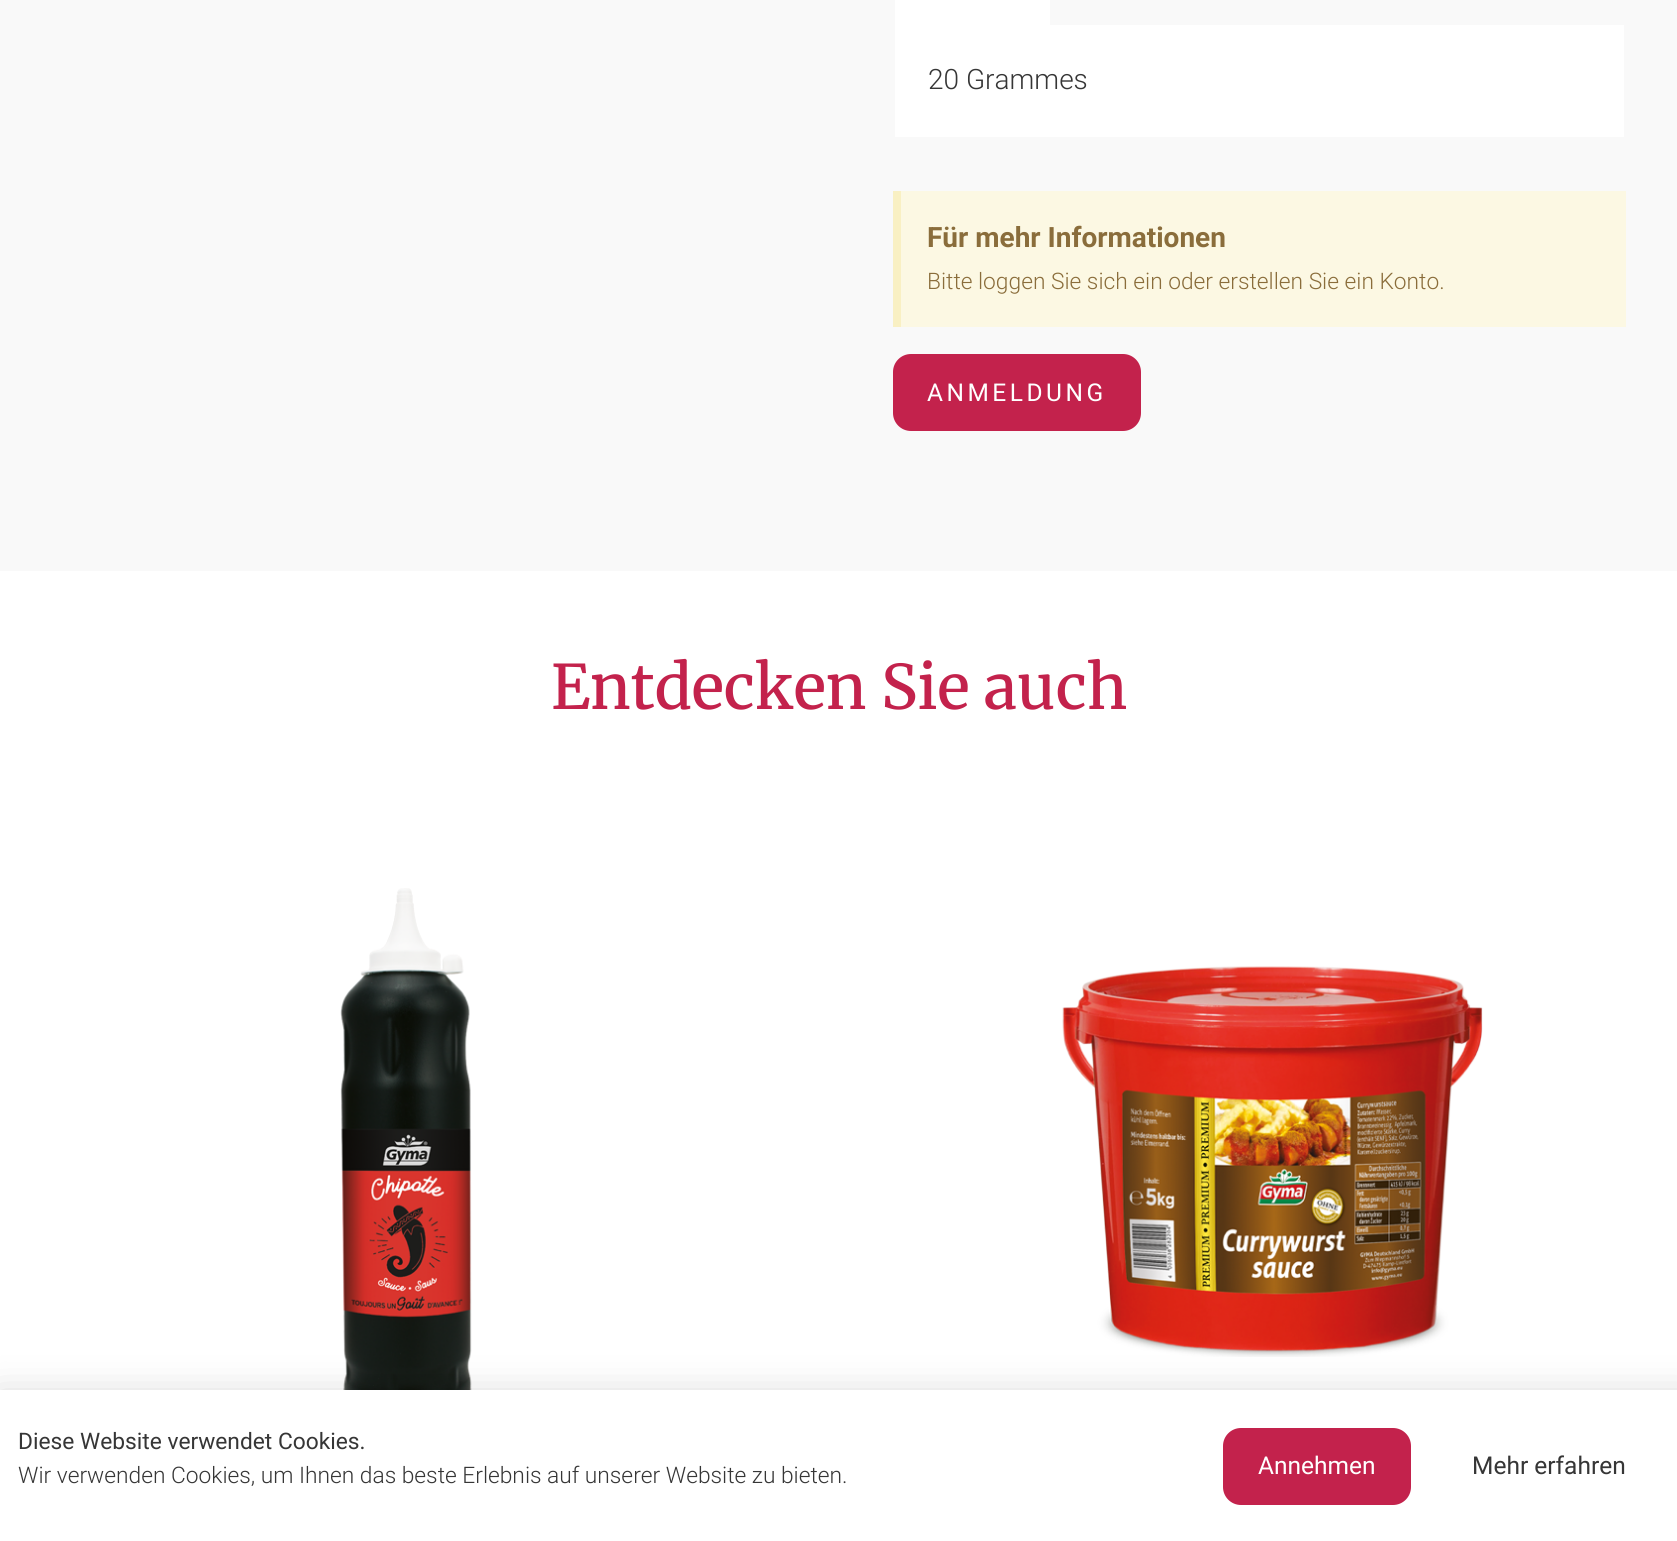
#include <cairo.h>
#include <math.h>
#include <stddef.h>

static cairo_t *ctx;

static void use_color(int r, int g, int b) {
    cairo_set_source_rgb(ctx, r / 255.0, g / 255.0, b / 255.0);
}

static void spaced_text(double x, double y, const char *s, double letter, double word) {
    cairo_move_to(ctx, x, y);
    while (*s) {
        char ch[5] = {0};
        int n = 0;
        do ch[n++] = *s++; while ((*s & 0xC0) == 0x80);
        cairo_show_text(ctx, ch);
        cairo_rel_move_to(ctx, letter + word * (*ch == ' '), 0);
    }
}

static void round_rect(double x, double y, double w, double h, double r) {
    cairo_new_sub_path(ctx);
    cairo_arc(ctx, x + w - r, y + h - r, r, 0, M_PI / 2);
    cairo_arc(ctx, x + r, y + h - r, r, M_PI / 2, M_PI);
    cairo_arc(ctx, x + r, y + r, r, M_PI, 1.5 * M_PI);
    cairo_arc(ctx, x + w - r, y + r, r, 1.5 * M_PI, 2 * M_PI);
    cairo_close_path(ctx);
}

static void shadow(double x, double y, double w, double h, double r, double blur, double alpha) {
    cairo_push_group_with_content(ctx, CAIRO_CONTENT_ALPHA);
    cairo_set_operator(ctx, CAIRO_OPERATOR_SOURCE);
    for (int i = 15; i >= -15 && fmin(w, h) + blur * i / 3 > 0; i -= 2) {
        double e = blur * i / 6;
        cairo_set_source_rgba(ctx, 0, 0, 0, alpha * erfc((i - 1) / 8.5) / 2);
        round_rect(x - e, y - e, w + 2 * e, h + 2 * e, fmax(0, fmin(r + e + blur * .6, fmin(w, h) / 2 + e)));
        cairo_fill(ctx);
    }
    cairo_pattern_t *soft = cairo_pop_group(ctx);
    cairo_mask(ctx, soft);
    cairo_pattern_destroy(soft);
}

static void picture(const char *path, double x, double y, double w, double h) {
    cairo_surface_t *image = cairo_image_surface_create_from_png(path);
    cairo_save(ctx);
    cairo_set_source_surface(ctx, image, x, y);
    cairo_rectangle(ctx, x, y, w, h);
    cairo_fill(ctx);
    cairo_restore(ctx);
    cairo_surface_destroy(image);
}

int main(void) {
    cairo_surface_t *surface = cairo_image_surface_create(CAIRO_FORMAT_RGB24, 1677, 1541);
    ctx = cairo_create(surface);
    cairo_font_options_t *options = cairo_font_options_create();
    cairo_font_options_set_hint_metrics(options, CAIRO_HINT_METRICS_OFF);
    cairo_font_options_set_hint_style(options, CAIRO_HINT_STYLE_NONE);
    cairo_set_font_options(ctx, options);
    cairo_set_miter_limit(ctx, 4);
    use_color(255, 255, 255);
    cairo_paint(ctx);
    use_color(249, 249, 249);
    cairo_rectangle(ctx, 0, 0, 1677, 571);
    cairo_fill(ctx);
    use_color(255, 255, 255);
    cairo_rectangle(ctx, 895, 0, 155, 25);
    cairo_fill(ctx);
    cairo_rectangle(ctx, 895, 25, 729, 112);
    cairo_fill(ctx);
    cairo_select_font_face(ctx, "Roboto Light", CAIRO_FONT_SLANT_NORMAL, CAIRO_FONT_WEIGHT_NORMAL);
    cairo_set_font_size(ctx, 28);
    use_color(54, 54, 54);
    cairo_move_to(ctx, 928, 89);
    cairo_show_text(ctx, "20 Grammes");
    use_color(252, 248, 227);
    cairo_rectangle(ctx, 901, 191, 725, 136);
    cairo_fill(ctx);
    use_color(249, 240, 195);
    cairo_rectangle(ctx, 893, 191, 8, 136);
    cairo_fill(ctx);
    cairo_select_font_face(ctx, "Roboto", CAIRO_FONT_SLANT_NORMAL, CAIRO_FONT_WEIGHT_BOLD);
    use_color(138, 109, 59);
    cairo_move_to(ctx, 927, 247);
    cairo_show_text(ctx, "Für mehr Informationen");
    cairo_select_font_face(ctx, "Roboto Light", CAIRO_FONT_SLANT_NORMAL, CAIRO_FONT_WEIGHT_NORMAL);
    cairo_set_font_size(ctx, 22.75);
    cairo_move_to(ctx, 927, 289);
    cairo_show_text(ctx, "Bitte loggen Sie sich ein oder erstellen Sie ein Konto.");
    use_color(195, 34, 76);
    round_rect(893, 354, 248, 77, 18);
    cairo_fill(ctx);
    cairo_select_font_face(ctx, "Roboto", CAIRO_FONT_SLANT_NORMAL, CAIRO_FONT_WEIGHT_NORMAL);
    cairo_set_font_size(ctx, 24.5);
    use_color(255, 255, 255);
    spaced_text(927, 401, "ANMELDUNG", 3.5, 0);
    cairo_select_font_face(ctx, "Merriweather Medium", CAIRO_FONT_SLANT_NORMAL, CAIRO_FONT_WEIGHT_NORMAL);
    cairo_set_font_size(ctx, 61.25);
    use_color(195, 34, 76);
    cairo_move_to(ctx, 551, 709);
    cairo_show_text(ctx, "Entdecken Sie auch");
    picture("img1.png", 340, 888, 132, 502);
    picture("img2.png", 1062, 966, 421, 391);
    use_color(0, 0, 0);
    shadow(-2, 1398, 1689, 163, 0, 20, 0.2);
    use_color(255, 255, 255);
    cairo_rectangle(ctx, 0, 1390, 1677, 151);
    cairo_fill(ctx);
    cairo_select_font_face(ctx, "Roboto", CAIRO_FONT_SLANT_NORMAL, CAIRO_FONT_WEIGHT_NORMAL);
    cairo_set_font_size(ctx, 22.75);
    use_color(54, 54, 54);
    cairo_move_to(ctx, 18, 1449);
    cairo_show_text(ctx, "Diese Website verwendet Cookies.");
    cairo_select_font_face(ctx, "Roboto Light", CAIRO_FONT_SLANT_NORMAL, CAIRO_FONT_WEIGHT_NORMAL);
    cairo_move_to(ctx, 18, 1483);
    cairo_show_text(ctx, "Wir verwenden Cookies, um Ihnen das beste Erlebnis auf unserer Website zu bieten.");
    use_color(195, 34, 76);
    round_rect(1223, 1428, 188, 77, 18);
    cairo_fill(ctx);
    cairo_select_font_face(ctx, "Roboto", CAIRO_FONT_SLANT_NORMAL, CAIRO_FONT_WEIGHT_NORMAL);
    cairo_set_font_size(ctx, 24.5);
    use_color(255, 255, 255);
    cairo_move_to(ctx, 1258, 1474);
    cairo_show_text(ctx, "Annehmen");
    use_color(54, 54, 54);
    cairo_move_to(ctx, 1472, 1474);
    cairo_show_text(ctx, "Mehr erfahren");
    cairo_surface_write_to_png(surface, "result.png");
    cairo_font_options_destroy(options);
    cairo_destroy(ctx);
    cairo_surface_destroy(surface);
    return 0;
}
